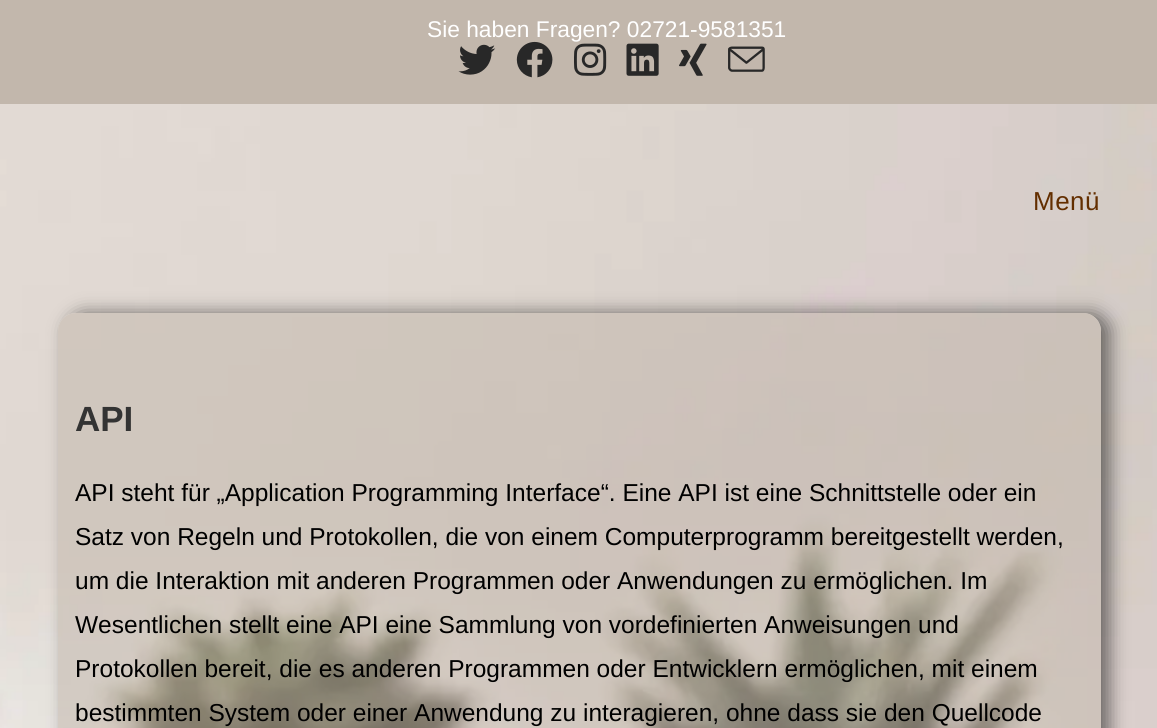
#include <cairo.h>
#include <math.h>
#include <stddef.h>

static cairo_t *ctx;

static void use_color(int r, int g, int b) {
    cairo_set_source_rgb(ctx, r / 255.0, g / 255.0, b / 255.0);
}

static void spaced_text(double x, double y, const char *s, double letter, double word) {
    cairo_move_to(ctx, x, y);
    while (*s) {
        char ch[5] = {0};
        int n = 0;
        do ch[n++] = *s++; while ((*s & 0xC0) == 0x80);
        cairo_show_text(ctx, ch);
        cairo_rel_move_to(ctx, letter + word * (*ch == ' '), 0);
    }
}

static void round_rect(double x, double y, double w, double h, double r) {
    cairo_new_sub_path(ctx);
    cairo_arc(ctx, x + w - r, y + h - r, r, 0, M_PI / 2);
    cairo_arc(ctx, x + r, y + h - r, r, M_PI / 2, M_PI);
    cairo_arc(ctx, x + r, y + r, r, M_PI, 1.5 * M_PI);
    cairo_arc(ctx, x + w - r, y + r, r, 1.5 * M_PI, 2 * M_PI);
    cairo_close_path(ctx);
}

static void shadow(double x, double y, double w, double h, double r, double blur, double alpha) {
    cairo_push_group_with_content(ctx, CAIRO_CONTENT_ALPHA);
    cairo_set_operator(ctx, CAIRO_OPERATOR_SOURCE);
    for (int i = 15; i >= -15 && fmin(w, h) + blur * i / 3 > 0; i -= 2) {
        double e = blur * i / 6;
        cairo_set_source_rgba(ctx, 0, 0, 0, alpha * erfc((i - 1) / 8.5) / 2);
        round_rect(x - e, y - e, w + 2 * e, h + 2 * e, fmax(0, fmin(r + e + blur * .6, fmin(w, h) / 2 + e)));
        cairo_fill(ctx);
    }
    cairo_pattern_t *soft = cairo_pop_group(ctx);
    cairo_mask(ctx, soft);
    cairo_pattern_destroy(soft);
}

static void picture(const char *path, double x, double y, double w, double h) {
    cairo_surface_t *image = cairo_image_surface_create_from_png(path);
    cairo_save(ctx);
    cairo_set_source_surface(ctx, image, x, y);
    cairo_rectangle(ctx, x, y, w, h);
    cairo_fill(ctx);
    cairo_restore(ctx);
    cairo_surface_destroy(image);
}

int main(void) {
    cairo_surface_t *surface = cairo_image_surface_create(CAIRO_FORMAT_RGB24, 1157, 728);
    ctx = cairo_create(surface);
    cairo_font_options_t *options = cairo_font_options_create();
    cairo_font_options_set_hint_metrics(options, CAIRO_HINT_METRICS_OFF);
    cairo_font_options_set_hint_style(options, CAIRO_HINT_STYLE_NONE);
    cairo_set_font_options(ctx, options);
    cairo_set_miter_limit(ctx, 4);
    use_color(255, 255, 255);
    cairo_paint(ctx);
    picture("img1.png", 0, 104, 1157, 624);
    use_color(194, 183, 172);
    cairo_rectangle(ctx, 0, 0, 1157, 104);
    cairo_fill(ctx);
    cairo_select_font_face(ctx, "Liberation Sans", CAIRO_FONT_SLANT_NORMAL, CAIRO_FONT_WEIGHT_NORMAL);
    cairo_set_font_size(ctx, 22.75);
    use_color(255, 255, 255);
    cairo_move_to(ctx, 427, 37);
    cairo_show_text(ctx, "Sie haben Fragen? 02721-9581351");
    picture("img2.png", 458, 44, 38, 31);
    picture("img3.png", 516, 41, 37, 37);
    picture("img4.png", 574, 43, 33, 33);
    picture("img5.png", 626, 43, 33, 33);
    picture("img6.png", 679, 43, 28, 33);
    picture("img7.png", 728, 46, 37, 26);
    cairo_set_font_size(ctx, 26);
    use_color(99, 46, 0);
    spaced_text(1033, 210, "Menü", 0.5, 0);
    cairo_save(ctx);
    cairo_set_fill_rule(ctx, CAIRO_FILL_RULE_EVEN_ODD);
    cairo_new_path(ctx);
    cairo_move_to(ctx, 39, 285);
    cairo_line_to(ctx, 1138, 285);
    cairo_line_to(ctx, 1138, 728);
    cairo_line_to(ctx, 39, 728);
    cairo_close_path(ctx);
    cairo_move_to(ctx, 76, 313);
    cairo_line_to(ctx, 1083, 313);
    cairo_curve_to(ctx, 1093, 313, 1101, 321, 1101, 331);
    cairo_line_to(ctx, 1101, 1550);
    cairo_curve_to(ctx, 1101, 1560, 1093, 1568, 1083, 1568);
    cairo_line_to(ctx, 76, 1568);
    cairo_curve_to(ctx, 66, 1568, 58, 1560, 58, 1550);
    cairo_line_to(ctx, 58, 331);
    cairo_curve_to(ctx, 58, 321, 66, 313, 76, 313);
    cairo_close_path(ctx);
    cairo_clip(ctx);
    use_color(0, 0, 0);
    shadow(67, 313, 1043, 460, 18, 9, 0.5);
    cairo_restore(ctx);
    cairo_set_source_rgba(ctx, 0.761, 0.718, 0.675, 0.53);
    round_rect(58, 313, 1043, 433, 18);
    cairo_fill(ctx);
    cairo_select_font_face(ctx, "Liberation Sans", CAIRO_FONT_SLANT_NORMAL, CAIRO_FONT_WEIGHT_BOLD);
    cairo_set_font_size(ctx, 35);
    use_color(51, 51, 51);
    cairo_move_to(ctx, 75, 431);
    cairo_show_text(ctx, "API");
    cairo_select_font_face(ctx, "Liberation Sans", CAIRO_FONT_SLANT_NORMAL, CAIRO_FONT_WEIGHT_NORMAL);
    cairo_set_font_size(ctx, 24.5);
    use_color(0, 0, 0);
    cairo_move_to(ctx, 75, 501);
    cairo_show_text(ctx, "API steht für „Application Programming Interface“. Eine API ist eine Schnittstelle oder ein");
    cairo_move_to(ctx, 75, 545);
    cairo_show_text(ctx, "Satz von Regeln und Protokollen, die von einem Computerprogramm bereitgestellt werden,");
    cairo_move_to(ctx, 75, 589);
    cairo_show_text(ctx, "um die Interaktion mit anderen Programmen oder Anwendungen zu ermöglichen. Im");
    cairo_move_to(ctx, 75, 633);
    cairo_show_text(ctx, "Wesentlichen stellt eine API eine Sammlung von vordefinierten Anweisungen und");
    cairo_move_to(ctx, 75, 677);
    cairo_show_text(ctx, "Protokollen bereit, die es anderen Programmen oder Entwicklern ermöglichen, mit einem");
    cairo_move_to(ctx, 75, 721);
    cairo_show_text(ctx, "bestimmten System oder einer Anwendung zu interagieren, ohne dass sie den Quellcode");
    cairo_surface_write_to_png(surface, "result.png");
    cairo_font_options_destroy(options);
    cairo_destroy(ctx);
    cairo_surface_destroy(surface);
    return 0;
}
